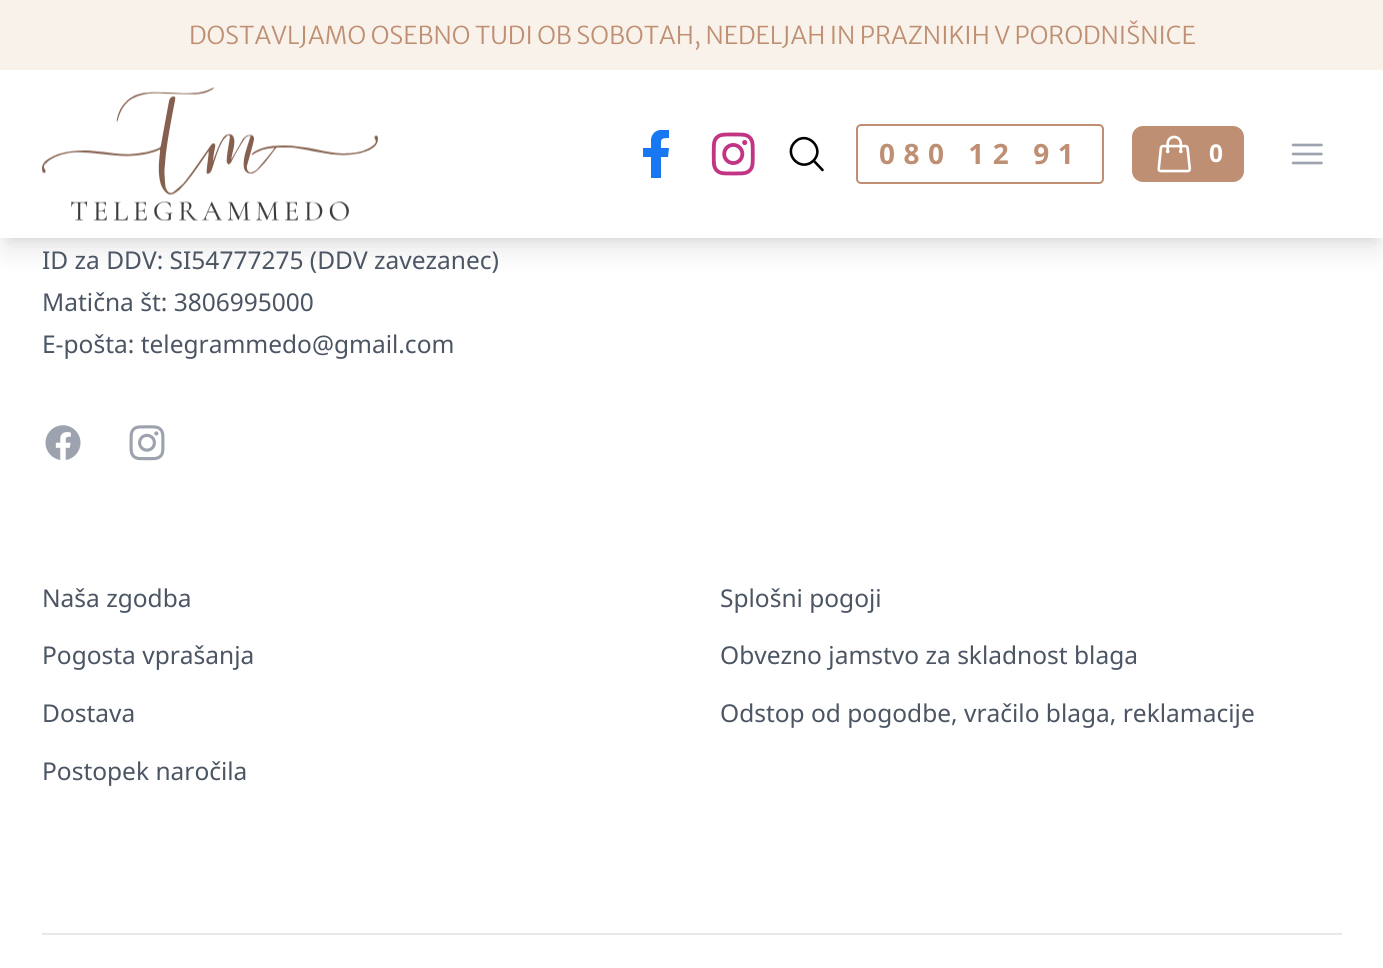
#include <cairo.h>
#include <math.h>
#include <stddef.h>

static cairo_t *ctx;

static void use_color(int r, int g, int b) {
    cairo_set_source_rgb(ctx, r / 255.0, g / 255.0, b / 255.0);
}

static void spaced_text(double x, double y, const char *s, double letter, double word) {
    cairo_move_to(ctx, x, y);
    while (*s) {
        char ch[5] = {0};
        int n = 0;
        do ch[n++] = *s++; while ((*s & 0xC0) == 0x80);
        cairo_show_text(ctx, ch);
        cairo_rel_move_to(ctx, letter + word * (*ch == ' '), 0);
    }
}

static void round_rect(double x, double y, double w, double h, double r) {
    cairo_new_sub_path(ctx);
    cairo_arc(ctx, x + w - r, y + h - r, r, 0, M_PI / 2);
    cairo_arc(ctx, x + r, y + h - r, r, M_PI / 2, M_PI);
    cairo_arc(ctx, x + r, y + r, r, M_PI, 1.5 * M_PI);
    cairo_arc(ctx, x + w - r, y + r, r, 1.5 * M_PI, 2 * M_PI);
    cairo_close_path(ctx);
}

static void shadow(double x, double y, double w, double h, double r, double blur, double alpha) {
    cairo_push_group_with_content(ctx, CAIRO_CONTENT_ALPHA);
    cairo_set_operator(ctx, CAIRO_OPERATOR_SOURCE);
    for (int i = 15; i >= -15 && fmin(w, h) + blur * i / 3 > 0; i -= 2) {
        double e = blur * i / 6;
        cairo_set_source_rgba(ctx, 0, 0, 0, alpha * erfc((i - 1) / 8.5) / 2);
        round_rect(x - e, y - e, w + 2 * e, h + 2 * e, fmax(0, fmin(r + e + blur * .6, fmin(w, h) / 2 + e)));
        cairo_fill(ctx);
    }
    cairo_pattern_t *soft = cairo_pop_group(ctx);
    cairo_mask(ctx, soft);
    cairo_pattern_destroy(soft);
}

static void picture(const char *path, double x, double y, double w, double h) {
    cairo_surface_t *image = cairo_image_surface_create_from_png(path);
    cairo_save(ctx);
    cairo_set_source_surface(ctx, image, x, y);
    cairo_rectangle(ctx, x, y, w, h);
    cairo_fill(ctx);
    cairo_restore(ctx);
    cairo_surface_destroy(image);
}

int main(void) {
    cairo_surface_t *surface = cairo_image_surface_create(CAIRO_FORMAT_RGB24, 1383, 968);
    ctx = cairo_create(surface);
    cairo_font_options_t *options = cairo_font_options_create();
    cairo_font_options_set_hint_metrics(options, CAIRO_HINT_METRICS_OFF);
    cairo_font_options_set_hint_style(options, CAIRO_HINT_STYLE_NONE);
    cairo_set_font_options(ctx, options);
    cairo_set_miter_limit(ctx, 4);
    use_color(255, 255, 255);
    cairo_paint(ctx);
    use_color(0, 0, 0);
    shadow(7, 14, 1370, 224, 0, 5, 0.1);
    shadow(5, 23, 1374, 227, 0, 13, 0.1);
    use_color(255, 255, 255);
    cairo_rectangle(ctx, 0, 70, 1383, 168);
    cairo_fill(ctx);
    use_color(249, 242, 234);
    cairo_rectangle(ctx, 0, 0, 1383, 70);
    cairo_fill(ctx);
    cairo_select_font_face(ctx, "Merriweather Sans Light", CAIRO_FONT_SLANT_NORMAL, CAIRO_FONT_WEIGHT_NORMAL);
    cairo_set_font_size(ctx, 24.5);
    use_color(191, 143, 115);
    cairo_move_to(ctx, 189, 44);
    cairo_show_text(ctx, "DOSTAVLJAMO OSEBNO TUDI OB SOBOTAH, NEDELJAH IN PRAZNIKIH V PORODNIŠNICE");
    picture("img1.png", 42, 87, 336, 134);
    cairo_save(ctx);
    cairo_rectangle(ctx, 632, 130, 49, 49);
    cairo_clip(ctx);
    use_color(24, 119, 242);
    cairo_new_path(ctx);
    cairo_move_to(ctx, 668, 157);
    cairo_line_to(ctx, 669, 148);
    cairo_line_to(ctx, 661, 148);
    cairo_curve_to(ctx, 661, 139, 660, 138, 669, 138);
    cairo_line_to(ctx, 669, 130);
    cairo_curve_to(ctx, 662, 129, 653, 129, 651, 139);
    cairo_line_to(ctx, 651, 148);
    cairo_line_to(ctx, 643, 148);
    cairo_line_to(ctx, 643, 157);
    cairo_line_to(ctx, 651, 157);
    cairo_line_to(ctx, 651, 178);
    cairo_line_to(ctx, 661, 178);
    cairo_line_to(ctx, 661, 157);
    cairo_close_path(ctx);
    cairo_fill(ctx);
    cairo_restore(ctx);
    picture("img2.png", 711, 132, 44, 44);
    cairo_new_path(ctx);
    cairo_move_to(ctx, 822.5, 170);
    cairo_line_to(ctx, 813.5, 160.5);
    cairo_move_to(ctx, 813.5, 160.5);
    cairo_curve_to(ctx, 825.5, 148.5, 807, 130, 795, 142);
    cairo_curve_to(ctx, 782.5, 154.5, 801, 173, 813.5, 160.5);
    cairo_close_path(ctx);
    use_color(0, 0, 0);
    cairo_set_line_width(ctx, 2.6);
    cairo_set_line_cap(ctx, CAIRO_LINE_CAP_ROUND);
    cairo_set_line_join(ctx, CAIRO_LINE_JOIN_ROUND);
    cairo_stroke(ctx);
    round_rect(857, 125, 246, 58, 4);
    use_color(191, 143, 115);
    cairo_set_line_width(ctx, 2);
    cairo_set_line_cap(ctx, CAIRO_LINE_CAP_BUTT);
    cairo_set_line_join(ctx, CAIRO_LINE_JOIN_MITER);
    cairo_stroke(ctx);
    cairo_select_font_face(ctx, "Noto Sans", CAIRO_FONT_SLANT_NORMAL, CAIRO_FONT_WEIGHT_BOLD);
    cairo_set_font_size(ctx, 28);
    spaced_text(879, 164, "080 12 91", 8.5, 0);
    round_rect(1132, 126, 112, 56, 11);
    cairo_fill(ctx);
    picture("img3.png", 1157, 135, 35, 38);
    cairo_set_font_size(ctx, 24.5);
    use_color(255, 255, 255);
    cairo_move_to(ctx, 1209, 162);
    cairo_show_text(ctx, "0");
    cairo_new_path(ctx);
    cairo_move_to(ctx, 1293, 145);
    cairo_line_to(ctx, 1321.5, 145);
    cairo_move_to(ctx, 1293, 154);
    cairo_line_to(ctx, 1321.5, 154);
    cairo_move_to(ctx, 1293, 163);
    cairo_line_to(ctx, 1321.5, 163);
    use_color(156, 163, 175);
    cairo_set_line_width(ctx, 2.6);
    cairo_set_line_cap(ctx, CAIRO_LINE_CAP_ROUND);
    cairo_set_line_join(ctx, CAIRO_LINE_JOIN_ROUND);
    cairo_stroke(ctx);
    cairo_select_font_face(ctx, "Noto Sans", CAIRO_FONT_SLANT_NORMAL, CAIRO_FONT_WEIGHT_NORMAL);
    use_color(75, 85, 99);
    cairo_move_to(ctx, 42, 269);
    cairo_show_text(ctx, "ID za DDV: SI54777275 (DDV zavezanec)");
    cairo_move_to(ctx, 42, 311);
    cairo_show_text(ctx, "Matična št: 3806995000");
    cairo_move_to(ctx, 42, 353);
    cairo_show_text(ctx, "E-pošta: telegrammedo@gmail.com");
    picture("img4.png", 45, 425, 36, 35);
    picture("img5.png", 129, 425, 36, 36);
    cairo_move_to(ctx, 42, 607);
    cairo_show_text(ctx, "Naša zgodba");
    cairo_move_to(ctx, 42, 664);
    cairo_show_text(ctx, "Pogosta vprašanja");
    cairo_move_to(ctx, 42, 722);
    cairo_show_text(ctx, "Dostava");
    cairo_move_to(ctx, 42, 780);
    cairo_show_text(ctx, "Postopek naročila");
    cairo_move_to(ctx, 720, 607);
    cairo_show_text(ctx, "Splošni pogoji");
    cairo_move_to(ctx, 720, 664);
    cairo_show_text(ctx, "Obvezno jamstvo za skladnost blaga");
    cairo_move_to(ctx, 720, 722);
    cairo_show_text(ctx, "Odstop od pogodbe, vračilo blaga, reklamacije");
    use_color(231, 232, 233);
    cairo_rectangle(ctx, 42, 933, 1300, 2);
    cairo_fill(ctx);
    cairo_surface_write_to_png(surface, "result.png");
    cairo_font_options_destroy(options);
    cairo_destroy(ctx);
    cairo_surface_destroy(surface);
    return 0;
}
